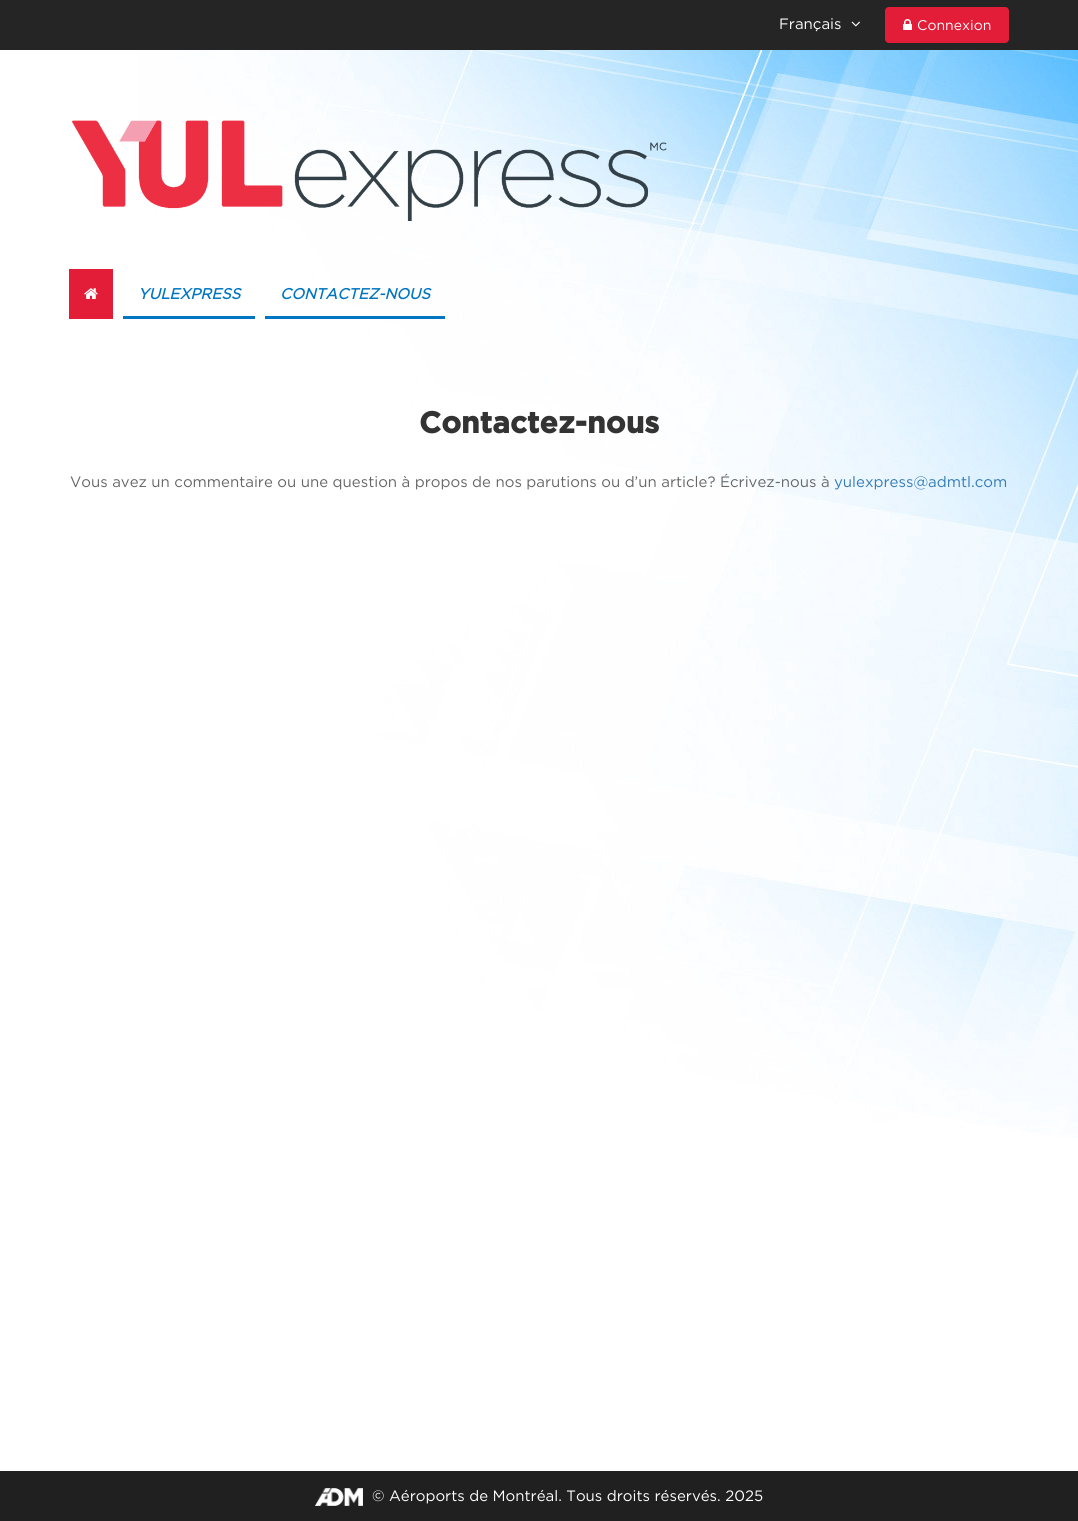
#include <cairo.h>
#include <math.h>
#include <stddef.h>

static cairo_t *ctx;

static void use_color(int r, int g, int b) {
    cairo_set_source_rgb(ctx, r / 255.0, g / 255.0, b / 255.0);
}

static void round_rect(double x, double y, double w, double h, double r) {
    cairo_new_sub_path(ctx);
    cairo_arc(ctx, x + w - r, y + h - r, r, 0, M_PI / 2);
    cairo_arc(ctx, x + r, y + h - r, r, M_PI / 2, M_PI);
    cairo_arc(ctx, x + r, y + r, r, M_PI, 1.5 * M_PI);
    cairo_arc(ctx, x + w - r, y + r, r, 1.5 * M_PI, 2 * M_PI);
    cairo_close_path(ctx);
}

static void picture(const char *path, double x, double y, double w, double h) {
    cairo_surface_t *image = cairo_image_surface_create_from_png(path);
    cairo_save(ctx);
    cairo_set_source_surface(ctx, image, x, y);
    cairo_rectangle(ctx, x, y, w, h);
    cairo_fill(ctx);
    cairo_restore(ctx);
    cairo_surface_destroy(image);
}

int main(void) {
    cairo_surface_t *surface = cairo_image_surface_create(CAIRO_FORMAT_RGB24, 1078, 1521);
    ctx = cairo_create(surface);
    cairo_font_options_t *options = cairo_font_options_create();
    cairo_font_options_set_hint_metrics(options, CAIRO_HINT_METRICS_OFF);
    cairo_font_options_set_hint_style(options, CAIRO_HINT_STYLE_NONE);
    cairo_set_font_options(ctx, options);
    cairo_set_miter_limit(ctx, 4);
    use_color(255, 255, 255);
    cairo_paint(ctx);
    picture("img1.png", 138, 50, 940, 1088);
    use_color(37, 37, 37);
    cairo_rectangle(ctx, 0, 0, 1078, 50);
    cairo_fill(ctx);
    cairo_select_font_face(ctx, "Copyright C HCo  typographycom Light", CAIRO_FONT_SLANT_NORMAL, CAIRO_FONT_WEIGHT_NORMAL);
    cairo_set_font_size(ctx, 15);
    use_color(255, 255, 255);
    cairo_move_to(ctx, 779, 29);
    cairo_show_text(ctx, "Français");
    picture("img2.png", 851, 21, 9, 6);
    use_color(227, 29, 56);
    round_rect(885, 7, 124, 36, 4);
    cairo_fill(ctx);
    picture("img3.png", 903, 19, 9, 11);
    cairo_set_font_size(ctx, 14);
    use_color(255, 255, 255);
    cairo_move_to(ctx, 917, 30);
    cairo_show_text(ctx, "Connexion");
    picture("img4.png", 72, 120, 595, 101);
    use_color(227, 29, 56);
    cairo_rectangle(ctx, 69, 269, 44, 50);
    cairo_fill(ctx);
    picture("img5.png", 84, 288, 14, 11);
    cairo_select_font_face(ctx, "Copyright C HCo  typographycom", CAIRO_FONT_SLANT_ITALIC, CAIRO_FONT_WEIGHT_BOLD);
    cairo_set_font_size(ctx, 15);
    use_color(0, 117, 193);
    cairo_move_to(ctx, 138, 299);
    cairo_show_text(ctx, "YULEXPRESS");
    cairo_rectangle(ctx, 123, 316, 132, 3);
    cairo_fill(ctx);
    cairo_move_to(ctx, 280, 299);
    cairo_show_text(ctx, "CONTACTEZ-NOUS");
    cairo_rectangle(ctx, 265, 316, 180, 3);
    cairo_fill(ctx);
    cairo_select_font_face(ctx, "Copyright C HCo  typographycom", CAIRO_FONT_SLANT_NORMAL, CAIRO_FONT_WEIGHT_BOLD);
    cairo_set_font_size(ctx, 30);
    use_color(51, 51, 51);
    cairo_move_to(ctx, 419, 433);
    cairo_show_text(ctx, "Contactez-nous");
    cairo_select_font_face(ctx, "Copyright C HCo  typographycom Light", CAIRO_FONT_SLANT_NORMAL, CAIRO_FONT_WEIGHT_NORMAL);
    cairo_set_font_size(ctx, 15);
    use_color(102, 102, 102);
    cairo_move_to(ctx, 70, 487);
    cairo_show_text(ctx, "Vous avez un commentaire ou une question à propos de nos parutions ou d’un article? Écrivez-nous à");
    use_color(51, 122, 183);
    cairo_move_to(ctx, 834, 487);
    cairo_show_text(ctx, "yulexpress@admtl.com");
    use_color(32, 32, 32);
    cairo_rectangle(ctx, 0, 1471, 1078, 50);
    cairo_fill(ctx);
    picture("img6.png", 315, 1488, 48, 18);
    use_color(255, 255, 255);
    cairo_move_to(ctx, 372, 1501);
    cairo_show_text(ctx, "© Aéroports de Montréal. Tous droits réservés. 2025");
    cairo_surface_write_to_png(surface, "result.png");
    cairo_font_options_destroy(options);
    cairo_destroy(ctx);
    cairo_surface_destroy(surface);
    return 0;
}
